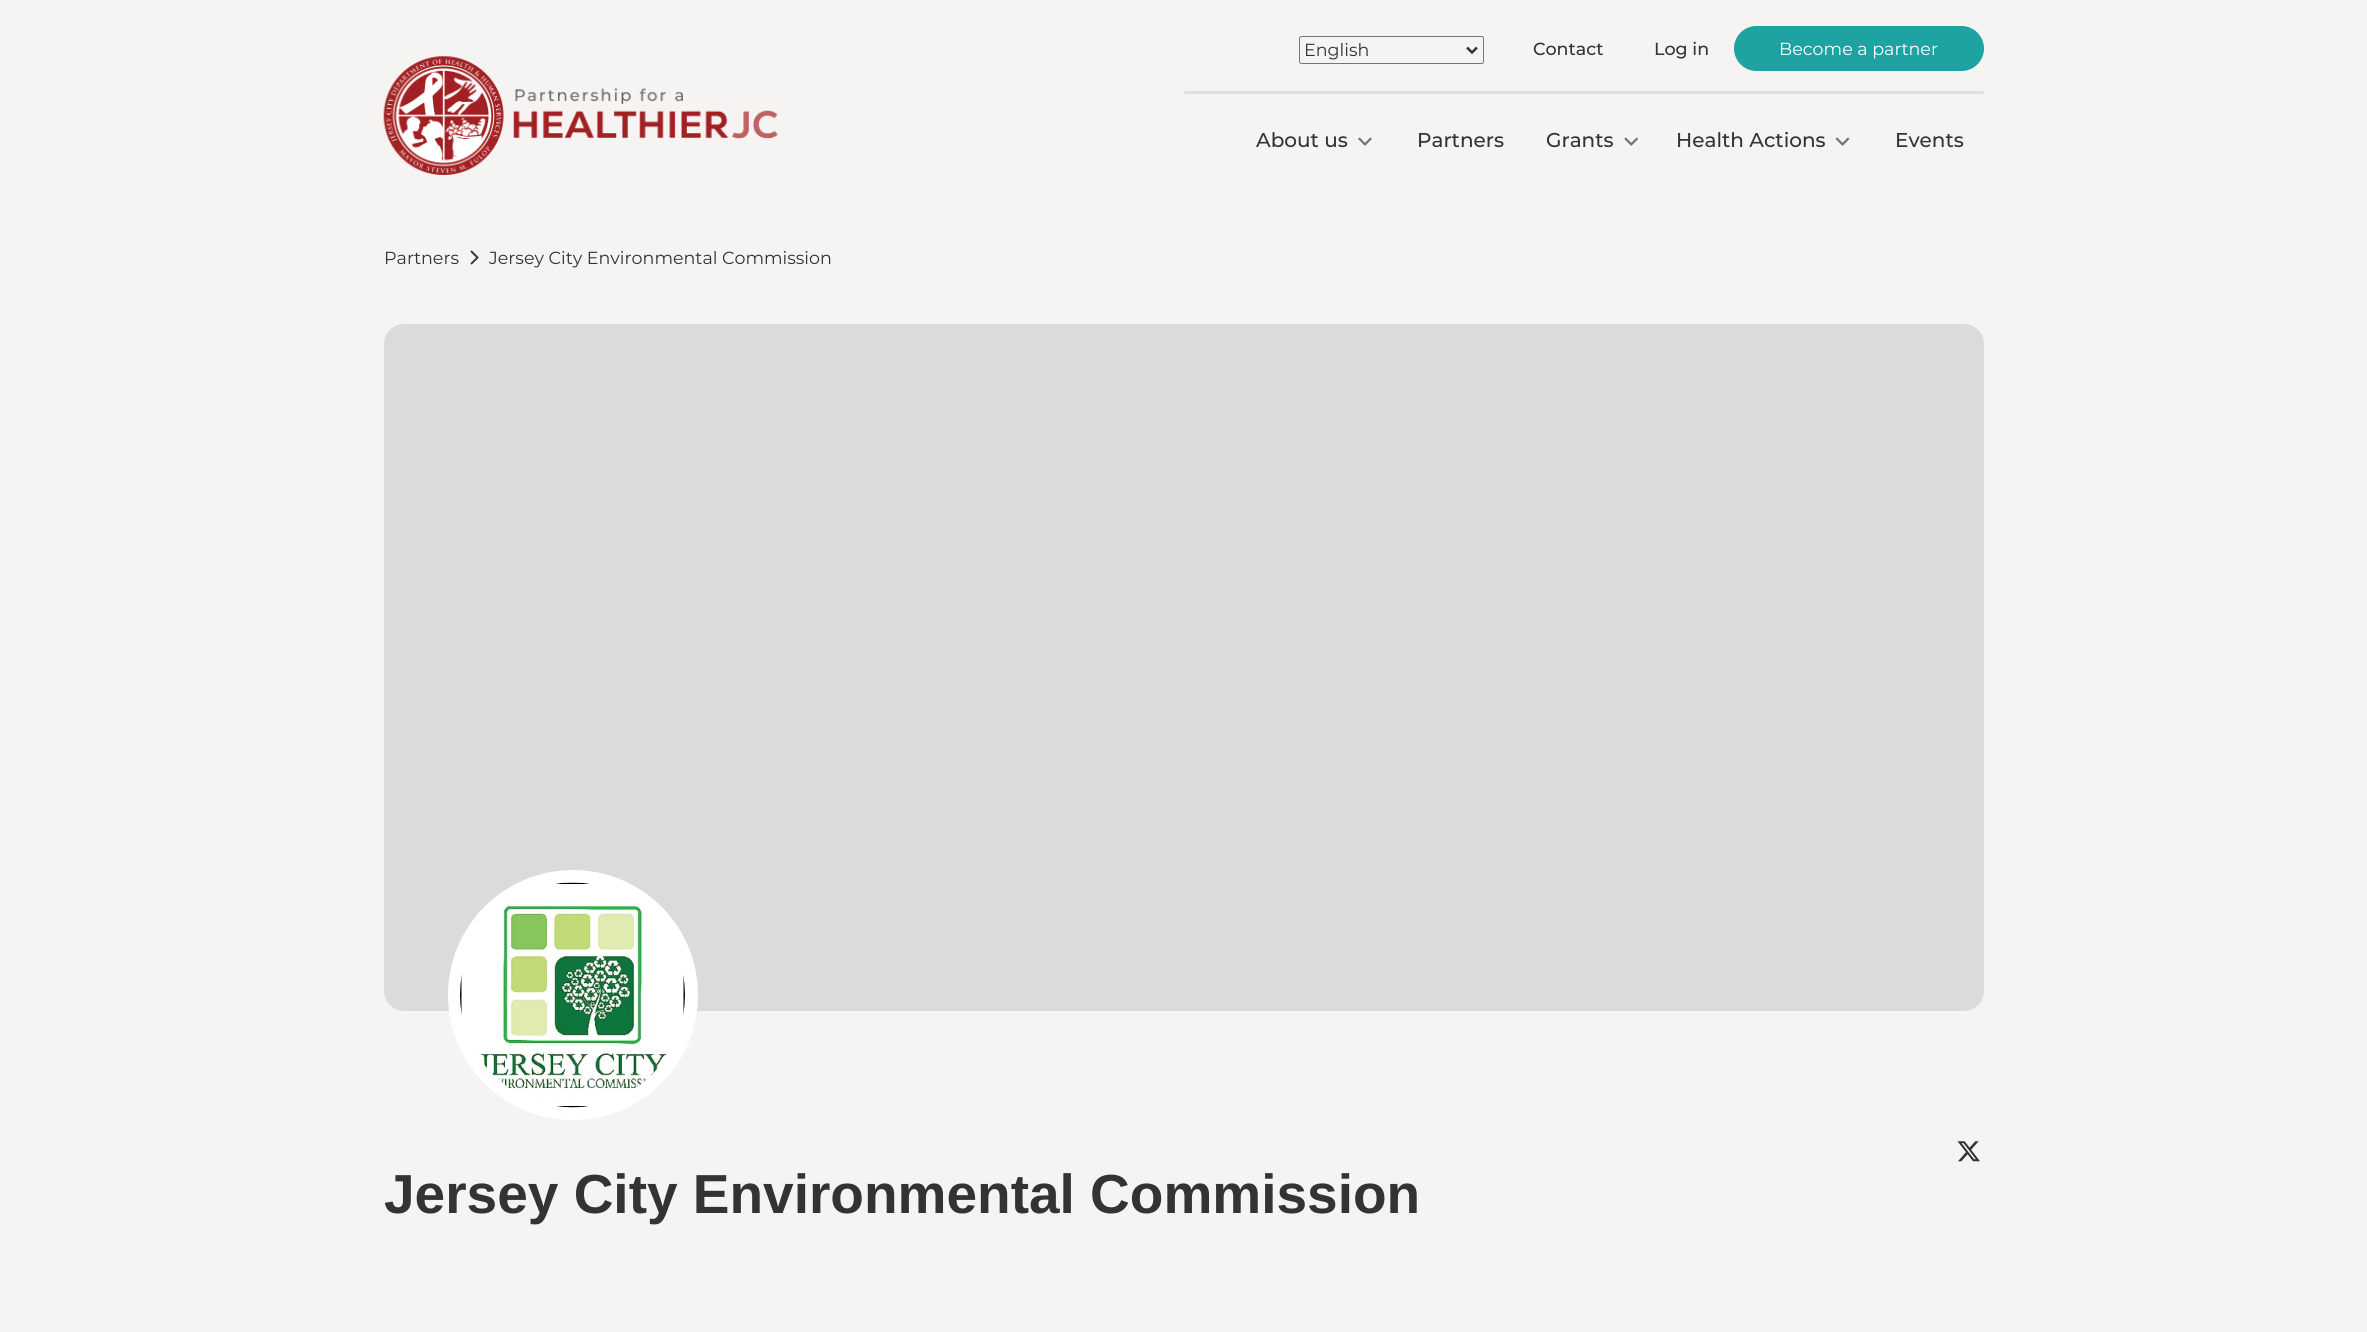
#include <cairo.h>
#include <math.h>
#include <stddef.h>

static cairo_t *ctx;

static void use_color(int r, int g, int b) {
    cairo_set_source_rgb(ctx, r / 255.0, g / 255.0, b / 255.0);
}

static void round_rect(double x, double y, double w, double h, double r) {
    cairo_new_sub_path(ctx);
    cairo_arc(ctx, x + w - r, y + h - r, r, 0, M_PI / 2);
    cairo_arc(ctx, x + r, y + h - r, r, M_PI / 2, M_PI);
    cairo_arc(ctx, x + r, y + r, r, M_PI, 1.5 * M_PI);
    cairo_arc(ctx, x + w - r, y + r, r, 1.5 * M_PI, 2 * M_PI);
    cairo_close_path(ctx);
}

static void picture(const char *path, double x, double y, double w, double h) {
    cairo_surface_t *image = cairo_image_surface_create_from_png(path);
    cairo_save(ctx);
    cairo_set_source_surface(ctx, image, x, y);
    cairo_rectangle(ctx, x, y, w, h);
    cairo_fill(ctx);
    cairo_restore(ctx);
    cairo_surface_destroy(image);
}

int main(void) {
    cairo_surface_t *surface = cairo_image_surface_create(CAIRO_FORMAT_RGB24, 2367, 1332);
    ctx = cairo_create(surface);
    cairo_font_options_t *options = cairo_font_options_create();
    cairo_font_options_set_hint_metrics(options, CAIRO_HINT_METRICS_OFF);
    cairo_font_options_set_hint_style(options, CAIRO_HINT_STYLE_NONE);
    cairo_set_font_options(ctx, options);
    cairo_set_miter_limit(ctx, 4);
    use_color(246, 244, 243);
    cairo_paint(ctx);
    round_rect(1299.5, 36.5, 184, 27, 2);
    use_color(118, 118, 118);
    cairo_set_line_width(ctx, 1);
    cairo_stroke(ctx);
    cairo_new_path(ctx);
    cairo_move_to(ctx, 1467, 47.5);
    cairo_line_to(ctx, 1472, 52.5);
    cairo_line_to(ctx, 1477, 47.5);
    use_color(51, 51, 51);
    cairo_set_line_width(ctx, 2.5);
    cairo_stroke(ctx);
    cairo_select_font_face(ctx, "Montserrat", CAIRO_FONT_SLANT_NORMAL, CAIRO_FONT_WEIGHT_NORMAL);
    cairo_set_font_size(ctx, 17.5);
    cairo_move_to(ctx, 1304, 56);
    cairo_show_text(ctx, "English");
    cairo_select_font_face(ctx, "Montserrat Medium", CAIRO_FONT_SLANT_NORMAL, CAIRO_FONT_WEIGHT_NORMAL);
    cairo_move_to(ctx, 1533, 55);
    cairo_show_text(ctx, "Contact");
    cairo_move_to(ctx, 1654, 55);
    cairo_show_text(ctx, "Log in");
    use_color(30, 162, 162);
    round_rect(1734, 26, 250, 45, 22.5);
    cairo_fill(ctx);
    cairo_select_font_face(ctx, "Montserrat", CAIRO_FONT_SLANT_NORMAL, CAIRO_FONT_WEIGHT_NORMAL);
    use_color(255, 255, 255);
    cairo_move_to(ctx, 1779, 55);
    cairo_show_text(ctx, "Become a partner");
    use_color(224, 224, 224);
    round_rect(1184, 91, 800, 3, 1.5);
    cairo_fill(ctx);
    picture("img1.png", 383, 56, 395, 119);
    cairo_select_font_face(ctx, "Montserrat Medium", CAIRO_FONT_SLANT_NORMAL, CAIRO_FONT_WEIGHT_NORMAL);
    cairo_set_font_size(ctx, 20);
    use_color(51, 51, 51);
    cairo_move_to(ctx, 1256, 147);
    cairo_show_text(ctx, "About us");
    picture("img2.png", 1358, 137, 14, 9);
    cairo_move_to(ctx, 1417, 147);
    cairo_show_text(ctx, "Partners");
    cairo_move_to(ctx, 1546, 147);
    cairo_show_text(ctx, "Grants");
    picture("img3.png", 1624, 137, 15, 9);
    cairo_move_to(ctx, 1676, 147);
    cairo_show_text(ctx, "Health Actions");
    picture("img4.png", 1835, 137, 15, 9);
    cairo_move_to(ctx, 1895, 147);
    cairo_show_text(ctx, "Events");
    cairo_select_font_face(ctx, "Montserrat", CAIRO_FONT_SLANT_NORMAL, CAIRO_FONT_WEIGHT_NORMAL);
    cairo_set_font_size(ctx, 17.5);
    cairo_move_to(ctx, 384, 264);
    cairo_show_text(ctx, "Partners");
    cairo_new_path(ctx);
    cairo_move_to(ctx, 471, 251);
    cairo_line_to(ctx, 477.5, 257.5);
    cairo_line_to(ctx, 471, 264);
    cairo_set_line_width(ctx, 1.9);
    cairo_stroke(ctx);
    cairo_move_to(ctx, 489, 264);
    cairo_show_text(ctx, "Jersey City Environmental Commission");
    use_color(219, 219, 219);
    round_rect(384, 324, 1600, 687, 20);
    cairo_fill(ctx);
    use_color(255, 255, 255);
    cairo_arc(ctx, 573, 995, 118.5, 0, 2 * M_PI);
    cairo_fill_preserve(ctx);
    cairo_set_line_width(ctx, 13);
    cairo_stroke(ctx);
    picture("img5.png", 460, 882, 225, 226);
    picture("img6.png", 1957, 1141, 23, 21);
    cairo_select_font_face(ctx, "Liberation Sans", CAIRO_FONT_SLANT_NORMAL, CAIRO_FONT_WEIGHT_BOLD);
    cairo_set_font_size(ctx, 55);
    use_color(51, 51, 51);
    cairo_move_to(ctx, 384, 1213);
    cairo_show_text(ctx, "Jersey City Environmental Commission");
    cairo_surface_write_to_png(surface, "result.png");
    cairo_font_options_destroy(options);
    cairo_destroy(ctx);
    cairo_surface_destroy(surface);
    return 0;
}
